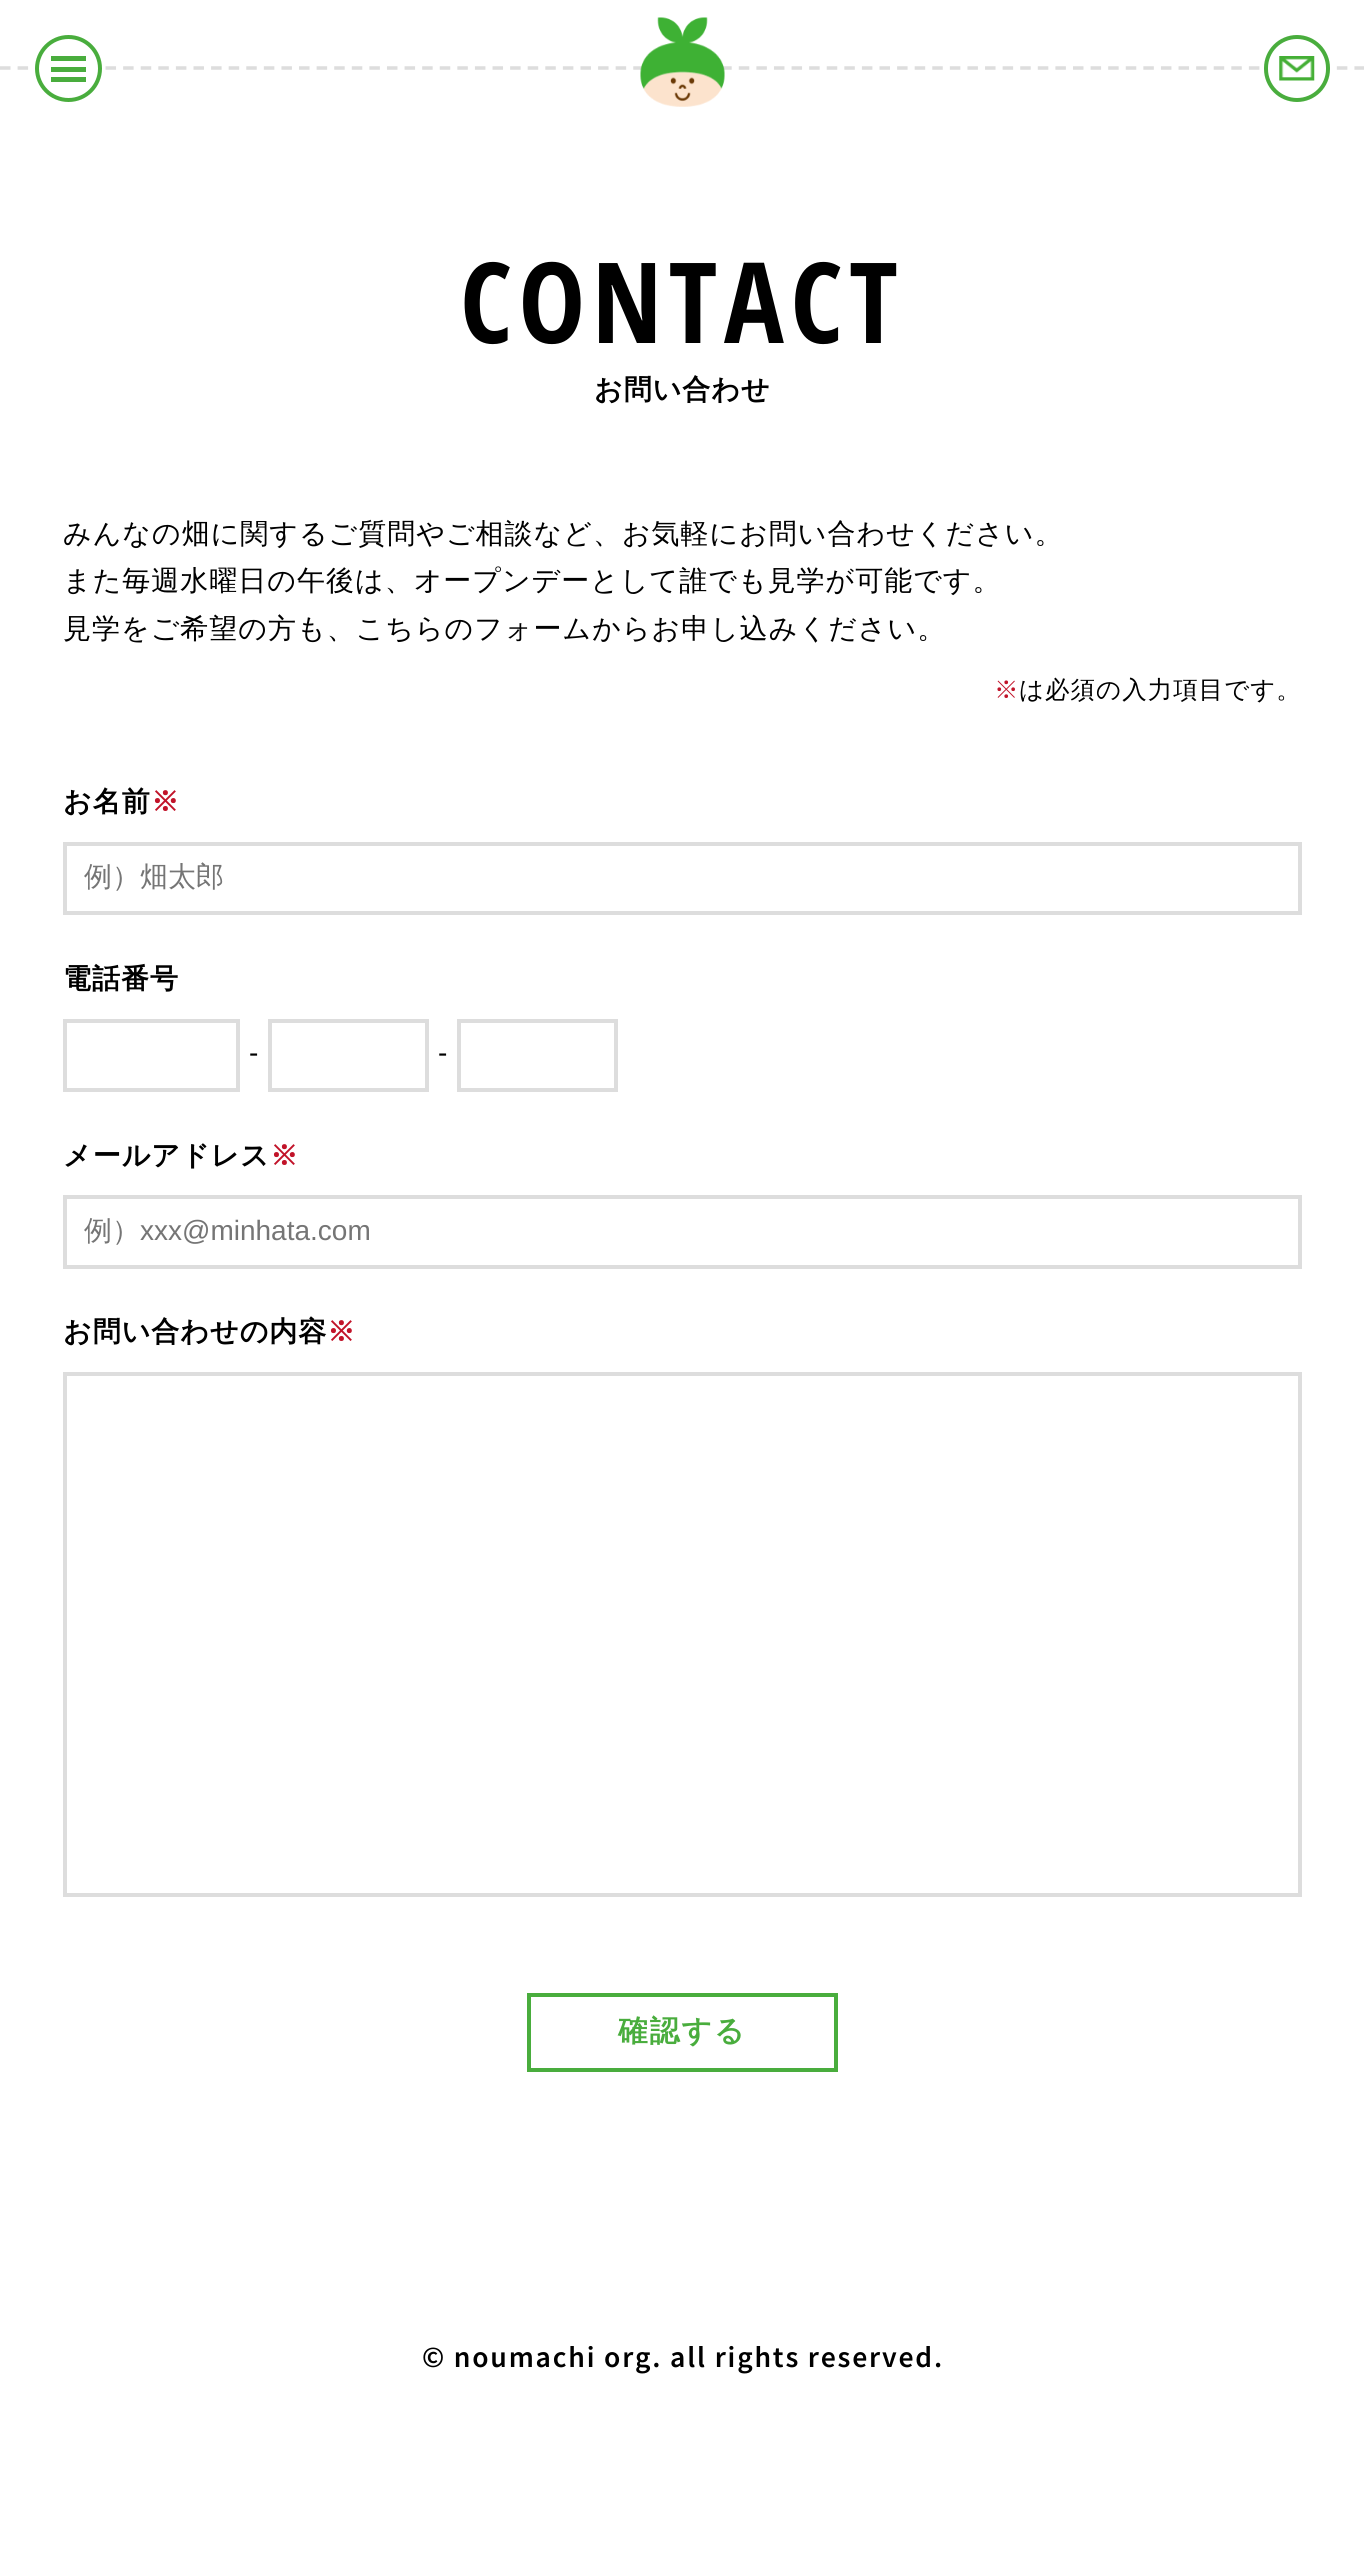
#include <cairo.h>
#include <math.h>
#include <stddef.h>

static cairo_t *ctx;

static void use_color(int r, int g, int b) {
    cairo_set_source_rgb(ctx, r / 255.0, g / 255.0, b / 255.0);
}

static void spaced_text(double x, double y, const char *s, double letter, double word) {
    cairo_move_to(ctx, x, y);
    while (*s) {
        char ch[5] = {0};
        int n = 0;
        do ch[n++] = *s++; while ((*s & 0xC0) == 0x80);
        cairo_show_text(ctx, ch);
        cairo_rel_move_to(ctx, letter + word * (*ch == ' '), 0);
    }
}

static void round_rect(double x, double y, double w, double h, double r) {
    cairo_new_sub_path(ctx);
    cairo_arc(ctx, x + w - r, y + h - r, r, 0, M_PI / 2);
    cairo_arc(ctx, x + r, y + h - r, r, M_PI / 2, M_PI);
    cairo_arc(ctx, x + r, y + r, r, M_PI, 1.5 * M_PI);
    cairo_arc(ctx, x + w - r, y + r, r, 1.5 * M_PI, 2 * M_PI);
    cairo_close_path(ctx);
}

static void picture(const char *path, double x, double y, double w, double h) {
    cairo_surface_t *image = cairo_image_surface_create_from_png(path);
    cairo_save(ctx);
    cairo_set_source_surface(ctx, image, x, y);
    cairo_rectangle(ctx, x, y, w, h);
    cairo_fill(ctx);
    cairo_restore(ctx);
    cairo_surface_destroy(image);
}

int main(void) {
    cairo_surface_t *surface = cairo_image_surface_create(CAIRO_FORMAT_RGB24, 1364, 2556);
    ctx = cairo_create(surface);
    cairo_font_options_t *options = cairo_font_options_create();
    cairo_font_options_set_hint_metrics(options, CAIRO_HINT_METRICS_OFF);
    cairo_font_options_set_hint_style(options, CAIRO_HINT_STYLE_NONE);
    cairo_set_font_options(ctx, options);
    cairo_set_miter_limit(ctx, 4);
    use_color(255, 255, 255);
    cairo_paint(ctx);
    cairo_new_path(ctx);
    cairo_move_to(ctx, 0, 68);
    cairo_line_to(ctx, 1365, 68);
    use_color(221, 221, 221);
    cairo_set_line_width(ctx, 3.5);
    cairo_set_dash(ctx, (double[]){10.5, 7.09}, 2, 0);
    cairo_stroke(ctx);
    picture("img1.png", 640, 17, 85, 90);
    use_color(255, 255, 255);
    cairo_arc(ctx, 68.5, 68.5, 31.5, 0, 2 * M_PI);
    cairo_fill_preserve(ctx);
    use_color(73, 173, 61);
    cairo_set_line_width(ctx, 4);
    cairo_set_dash(ctx, NULL, 0, 0);
    cairo_stroke(ctx);
    cairo_rectangle(ctx, 51, 67, 35, 5);
    cairo_fill(ctx);
    cairo_rectangle(ctx, 51, 56, 35, 5);
    cairo_fill(ctx);
    cairo_rectangle(ctx, 51, 77, 35, 5);
    cairo_fill(ctx);
    use_color(255, 255, 255);
    round_rect(1266, 37, 62, 63, 31);
    cairo_fill_preserve(ctx);
    use_color(73, 173, 61);
    cairo_stroke(ctx);
    picture("img2.png", 1279, 56, 36, 25);
    cairo_select_font_face(ctx, "Open Sans Condensed", CAIRO_FONT_SLANT_NORMAL, CAIRO_FONT_WEIGHT_BOLD);
    cairo_set_font_size(ctx, 112);
    use_color(0, 0, 0);
    spaced_text(460, 343, "CONTACT", 6.75, 0);
    cairo_select_font_face(ctx, "WenQuanYi Zen Hei", CAIRO_FONT_SLANT_NORMAL, CAIRO_FONT_WEIGHT_BOLD);
    cairo_set_font_size(ctx, 28);
    spaced_text(594, 399, "お問い合わせ", 1, 0);
    cairo_select_font_face(ctx, "WenQuanYi Zen Hei Medium", CAIRO_FONT_SLANT_NORMAL, CAIRO_FONT_WEIGHT_NORMAL);
    spaced_text(63, 543, "みんなの畑に関するご質問やご相談など、お気軽にお問い合わせください。", 1, 0);
    spaced_text(63, 590, "また毎週水曜日の午後は、オープンデーとして誰でも見学が可能です。", 1, 0);
    spaced_text(63, 638, "見学をご希望の方も、こちらのフォームからお申し込みください。", 1, 0);
    cairo_set_font_size(ctx, 24.5);
    use_color(193, 19, 41);
    spaced_text(994, 698, "※", 1, 0);
    use_color(0, 0, 0);
    spaced_text(1019, 698, "は必須の入力項目です。", 1, 0);
    cairo_select_font_face(ctx, "WenQuanYi Zen Hei", CAIRO_FONT_SLANT_NORMAL, CAIRO_FONT_WEIGHT_BOLD);
    cairo_set_font_size(ctx, 28);
    spaced_text(63, 811, "お名前", 1, 0);
    use_color(193, 19, 41);
    spaced_text(151, 811, "※", 1, 0);
    cairo_rectangle(ctx, 65, 844, 1235, 69);
    use_color(221, 221, 221);
    cairo_stroke(ctx);
    cairo_select_font_face(ctx, "WenQuanYi Zen Hei Medium", CAIRO_FONT_SLANT_NORMAL, CAIRO_FONT_WEIGHT_NORMAL);
    use_color(117, 117, 117);
    cairo_move_to(ctx, 84, 886);
    cairo_show_text(ctx, "例）畑太郎");
    cairo_select_font_face(ctx, "WenQuanYi Zen Hei", CAIRO_FONT_SLANT_NORMAL, CAIRO_FONT_WEIGHT_BOLD);
    use_color(0, 0, 0);
    spaced_text(63, 988, "電話番号", 1, 0);
    cairo_rectangle(ctx, 65, 1021, 173, 69);
    use_color(221, 221, 221);
    cairo_stroke(ctx);
    cairo_select_font_face(ctx, "Liberation Sans", CAIRO_FONT_SLANT_NORMAL, CAIRO_FONT_WEIGHT_NORMAL);
    use_color(0, 0, 0);
    spaced_text(249, 1062, "-", 1, 0);
    cairo_rectangle(ctx, 270, 1021, 157, 69);
    use_color(221, 221, 221);
    cairo_stroke(ctx);
    use_color(0, 0, 0);
    spaced_text(438, 1062, "-", 1, 0);
    cairo_rectangle(ctx, 459, 1021, 157, 69);
    use_color(221, 221, 221);
    cairo_stroke(ctx);
    cairo_select_font_face(ctx, "WenQuanYi Zen Hei", CAIRO_FONT_SLANT_NORMAL, CAIRO_FONT_WEIGHT_BOLD);
    use_color(0, 0, 0);
    spaced_text(63, 1165, "メールアドレス", 1, 0);
    use_color(193, 19, 41);
    spaced_text(270, 1165, "※", 1, 0);
    cairo_rectangle(ctx, 65, 1197, 1235, 70);
    use_color(221, 221, 221);
    cairo_stroke(ctx);
    cairo_select_font_face(ctx, "WenQuanYi Zen Hei Medium", CAIRO_FONT_SLANT_NORMAL, CAIRO_FONT_WEIGHT_NORMAL);
    use_color(117, 117, 117);
    cairo_move_to(ctx, 84, 1240);
    cairo_show_text(ctx, "例）");
    cairo_select_font_face(ctx, "Liberation Sans", CAIRO_FONT_SLANT_NORMAL, CAIRO_FONT_WEIGHT_NORMAL);
    cairo_move_to(ctx, 140, 1240);
    cairo_show_text(ctx, "xxx@minhata.com");
    cairo_select_font_face(ctx, "WenQuanYi Zen Hei", CAIRO_FONT_SLANT_NORMAL, CAIRO_FONT_WEIGHT_BOLD);
    use_color(0, 0, 0);
    spaced_text(63, 1341, "お問い合わせの内容", 1, 0);
    use_color(193, 19, 41);
    spaced_text(327, 1341, "※", 1, 0);
    cairo_rectangle(ctx, 65, 1374, 1235, 521);
    use_color(221, 221, 221);
    cairo_stroke(ctx);
    cairo_rectangle(ctx, 529, 1995, 307, 75);
    use_color(73, 173, 61);
    cairo_stroke(ctx);
    cairo_set_font_size(ctx, 29.75);
    spaced_text(618, 2041, "確認する", 2, 0);
    cairo_select_font_face(ctx, "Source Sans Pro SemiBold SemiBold", CAIRO_FONT_SLANT_NORMAL, CAIRO_FONT_WEIGHT_NORMAL);
    use_color(0, 0, 0);
    spaced_text(422, 2367, "© noumachi org. all rights reserved.", 1.8, 0);
    cairo_surface_write_to_png(surface, "result.png");
    cairo_font_options_destroy(options);
    cairo_destroy(ctx);
    cairo_surface_destroy(surface);
    return 0;
}
